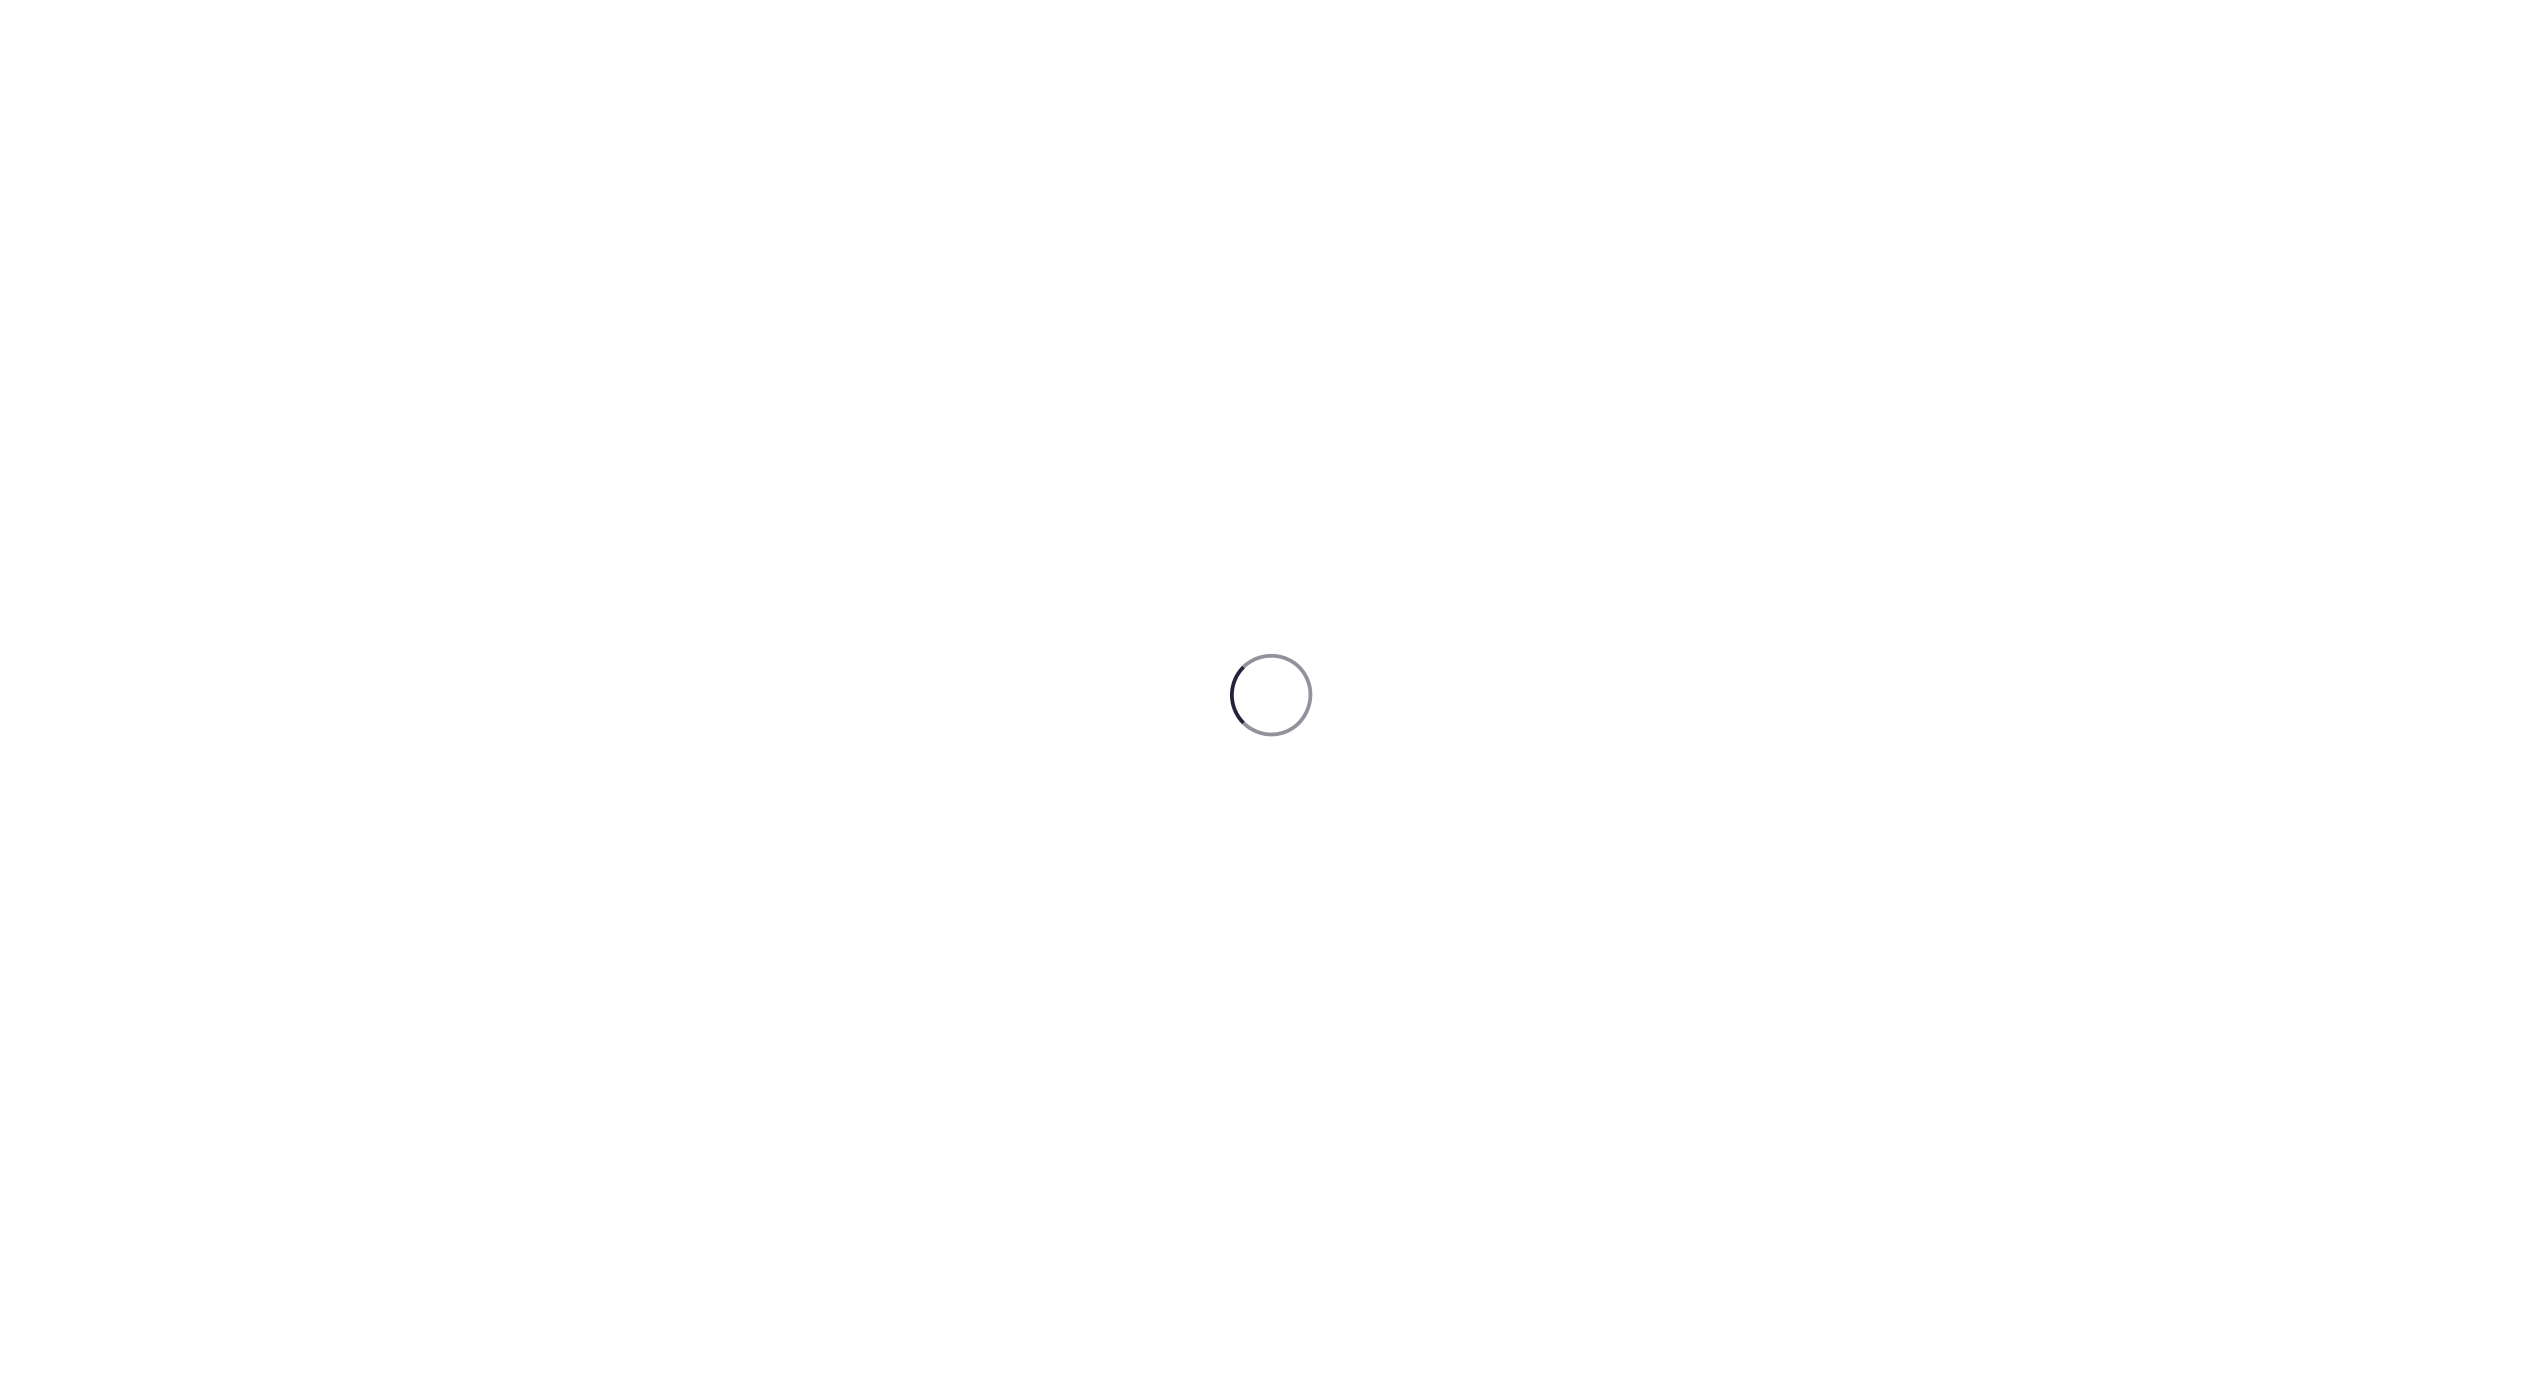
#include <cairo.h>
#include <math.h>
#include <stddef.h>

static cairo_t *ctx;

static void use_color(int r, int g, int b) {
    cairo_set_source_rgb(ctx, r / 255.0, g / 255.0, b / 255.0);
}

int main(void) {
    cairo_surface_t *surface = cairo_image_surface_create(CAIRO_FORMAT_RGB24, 2542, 1390);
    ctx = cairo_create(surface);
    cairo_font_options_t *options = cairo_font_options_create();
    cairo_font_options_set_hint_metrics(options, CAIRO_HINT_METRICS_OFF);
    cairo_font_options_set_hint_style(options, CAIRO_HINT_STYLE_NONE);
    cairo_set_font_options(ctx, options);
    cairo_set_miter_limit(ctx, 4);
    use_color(255, 255, 255);
    cairo_paint(ctx);
    cairo_new_path(ctx);
    cairo_move_to(ctx, 1243.5, 667);
    cairo_curve_to(ctx, 1252.5, 658, 1266, 654, 1279, 656.5);
    cairo_curve_to(ctx, 1286.5, 658, 1293.5, 661.5, 1299, 667);
    cairo_curve_to(ctx, 1323.5, 692, 1306, 734.5, 1271, 734.5);
    cairo_curve_to(ctx, 1261, 734.5, 1250.5, 730, 1243.5, 723);
    use_color(145, 146, 156);
    cairo_set_line_width(ctx, 3.8);
    cairo_stroke(ctx);
    cairo_new_path(ctx);
    cairo_move_to(ctx, 1243.5, 723);
    cairo_curve_to(ctx, 1228, 707.5, 1228, 682.5, 1243.5, 667);
    use_color(34, 36, 57);
    cairo_stroke(ctx);
    cairo_surface_write_to_png(surface, "result.png");
    cairo_font_options_destroy(options);
    cairo_destroy(ctx);
    cairo_surface_destroy(surface);
    return 0;
}
